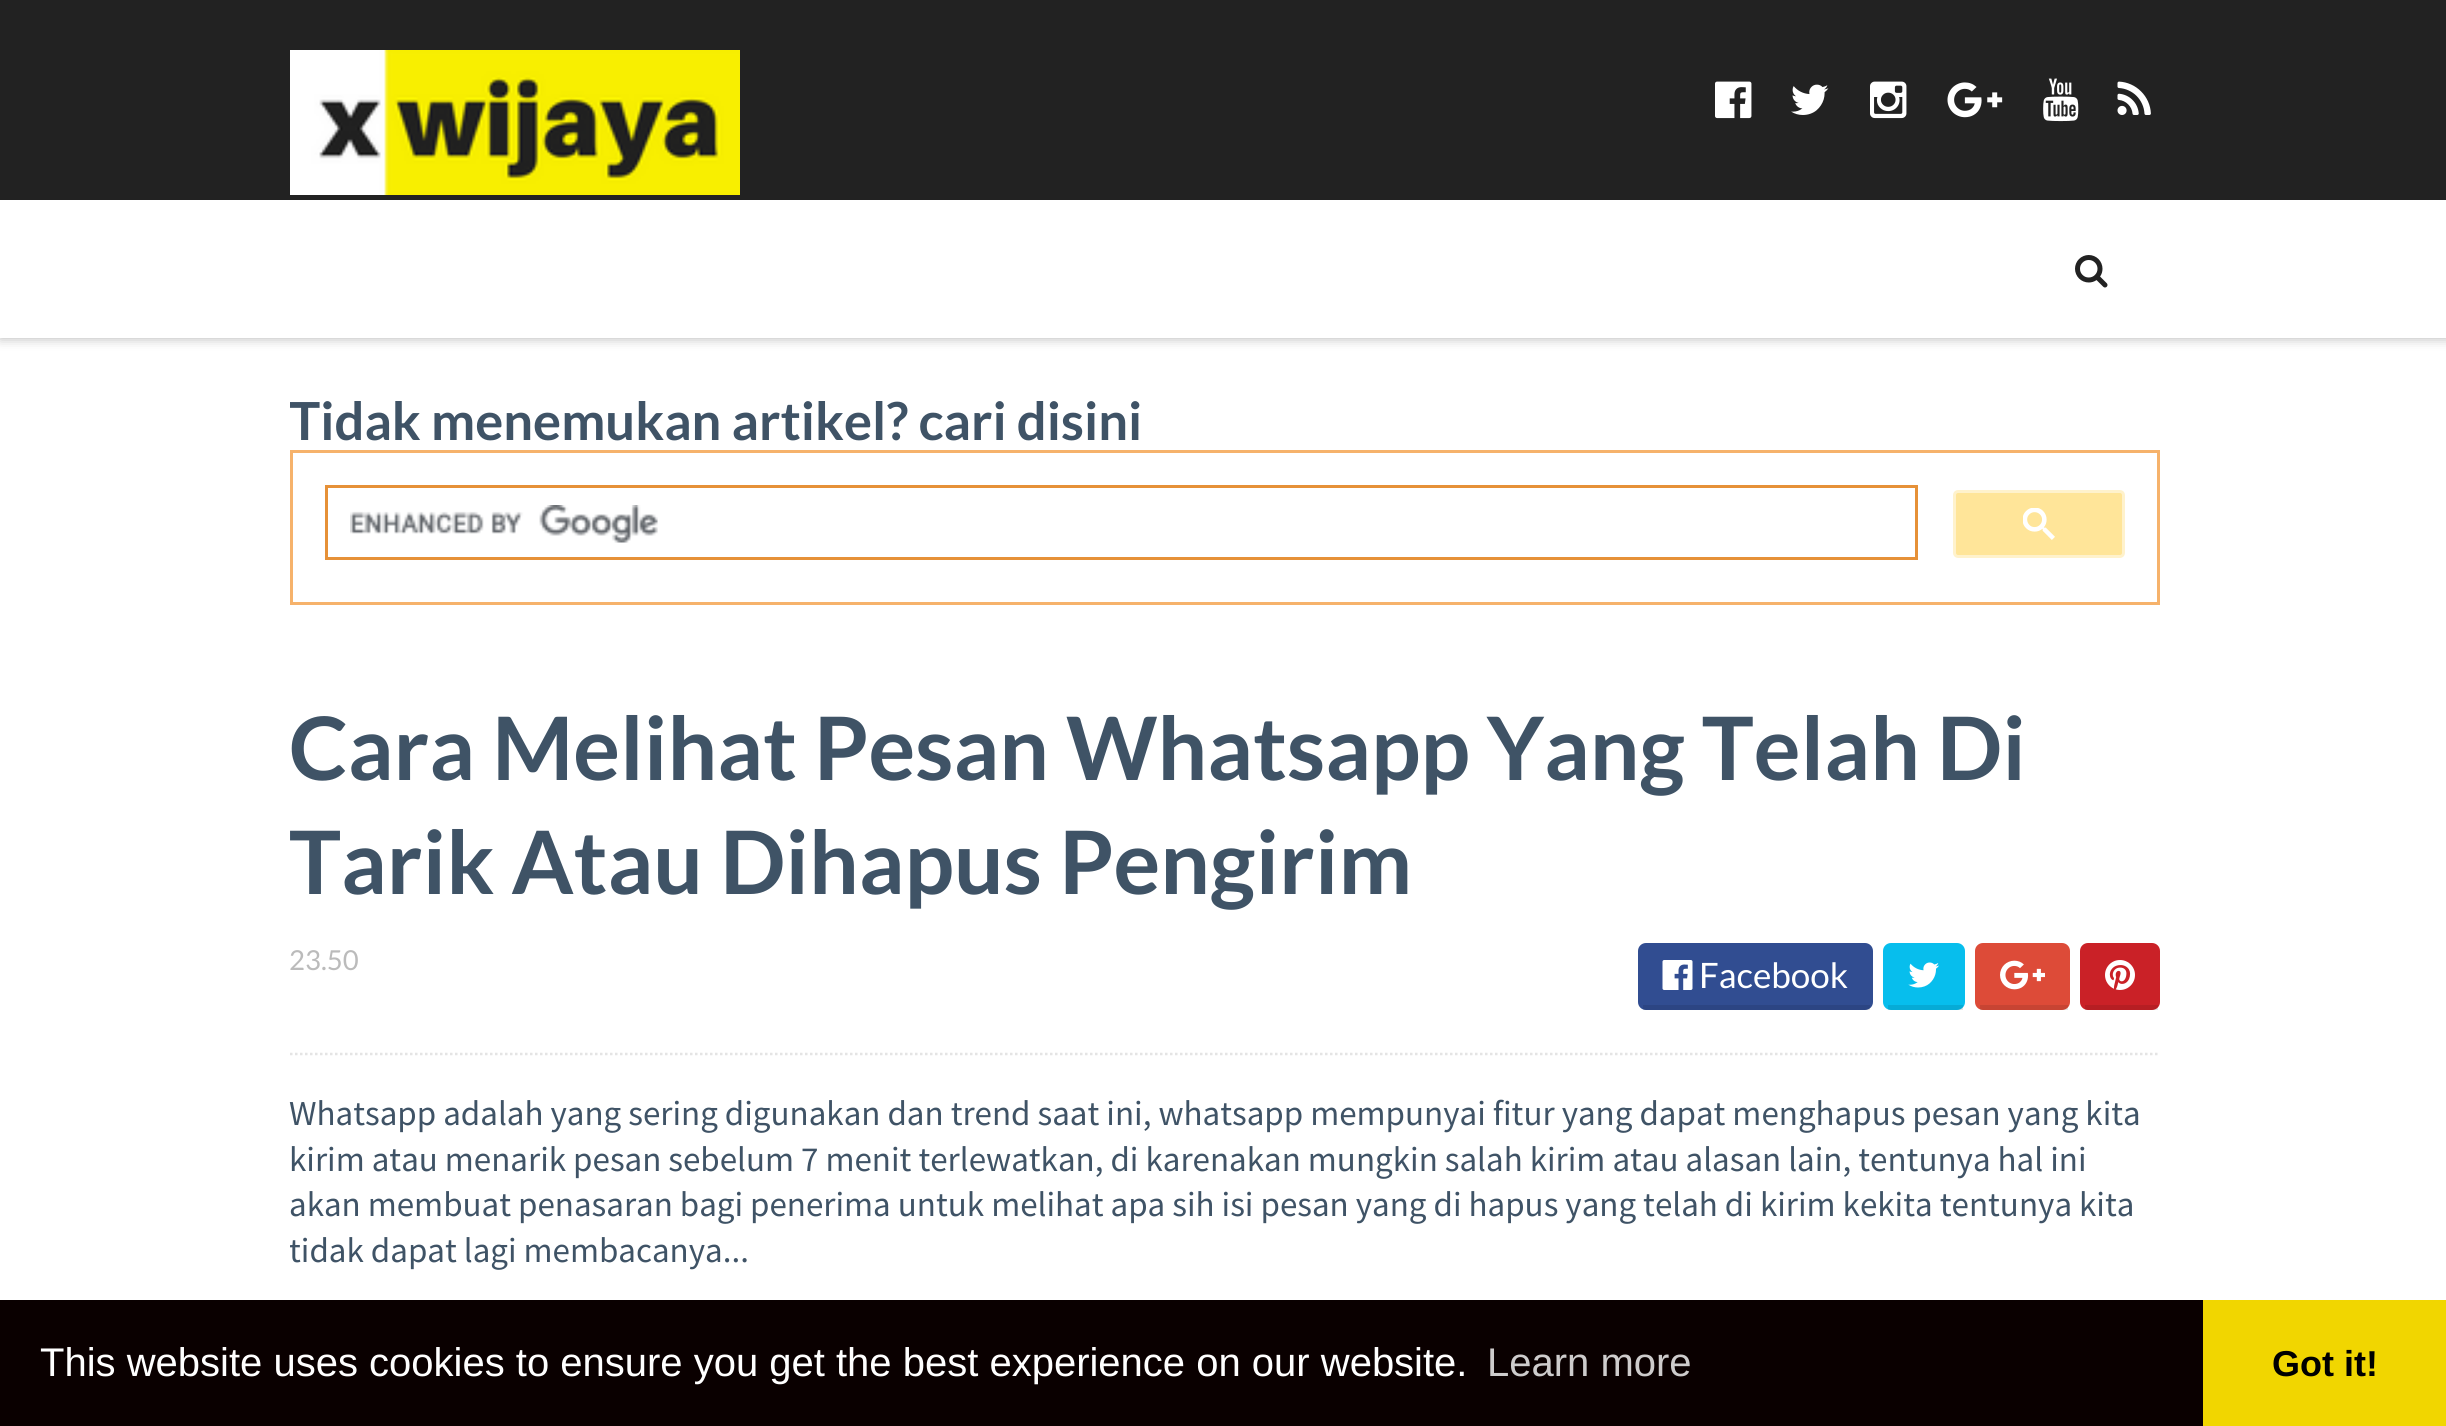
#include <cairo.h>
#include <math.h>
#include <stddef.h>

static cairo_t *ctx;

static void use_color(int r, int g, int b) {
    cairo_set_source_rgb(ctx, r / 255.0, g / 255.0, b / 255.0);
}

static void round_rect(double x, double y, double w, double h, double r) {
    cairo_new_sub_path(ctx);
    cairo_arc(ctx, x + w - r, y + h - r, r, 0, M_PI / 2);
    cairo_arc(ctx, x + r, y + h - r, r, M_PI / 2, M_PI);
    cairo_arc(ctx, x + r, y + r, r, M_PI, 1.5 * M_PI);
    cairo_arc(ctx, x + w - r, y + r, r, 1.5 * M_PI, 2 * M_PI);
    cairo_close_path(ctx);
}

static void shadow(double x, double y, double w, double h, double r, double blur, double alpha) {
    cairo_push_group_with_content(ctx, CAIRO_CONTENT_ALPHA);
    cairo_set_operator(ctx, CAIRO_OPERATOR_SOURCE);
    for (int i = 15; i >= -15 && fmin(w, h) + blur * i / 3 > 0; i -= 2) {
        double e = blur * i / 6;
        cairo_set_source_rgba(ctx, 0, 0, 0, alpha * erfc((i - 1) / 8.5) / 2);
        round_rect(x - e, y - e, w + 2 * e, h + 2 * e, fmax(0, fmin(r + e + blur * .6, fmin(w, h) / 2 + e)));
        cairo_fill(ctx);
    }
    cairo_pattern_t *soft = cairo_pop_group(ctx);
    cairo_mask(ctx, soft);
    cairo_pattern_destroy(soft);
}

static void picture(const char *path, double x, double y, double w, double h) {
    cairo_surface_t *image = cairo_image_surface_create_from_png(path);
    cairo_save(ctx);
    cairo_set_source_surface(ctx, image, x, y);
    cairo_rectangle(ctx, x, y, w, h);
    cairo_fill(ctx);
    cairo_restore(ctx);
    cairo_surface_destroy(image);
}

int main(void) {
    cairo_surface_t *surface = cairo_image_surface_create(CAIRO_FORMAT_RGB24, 2446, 1426);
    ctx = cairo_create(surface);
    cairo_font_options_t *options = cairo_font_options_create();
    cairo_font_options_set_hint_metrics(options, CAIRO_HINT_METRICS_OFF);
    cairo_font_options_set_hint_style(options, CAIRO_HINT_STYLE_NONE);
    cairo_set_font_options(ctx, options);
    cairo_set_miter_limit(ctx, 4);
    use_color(255, 255, 255);
    cairo_paint(ctx);
    use_color(0, 0, 0);
    shadow(0, 200, 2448, 138, 0, 6, 0.3);
    use_color(34, 34, 34);
    cairo_rectangle(ctx, 0, 0, 2446, 200);
    cairo_fill(ctx);
    picture("img1.png", 290, 50, 450, 145);
    picture("img2.png", 1715, 81, 37, 38);
    picture("img3.png", 1791, 84, 38, 31);
    picture("img4.png", 1870, 81, 37, 38);
    picture("img5.png", 1947, 82, 56, 36);
    picture("img6.png", 2043, 78, 36, 44);
    picture("img7.png", 2117, 81, 34, 34);
    use_color(255, 255, 255);
    cairo_rectangle(ctx, 0, 200, 2446, 138);
    cairo_fill(ctx);
    picture("img8.png", 2075, 255, 33, 33);
    cairo_save(ctx);
    cairo_rectangle(ctx, 290, 388, 1870, 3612);
    cairo_clip(ctx);
    cairo_select_font_face(ctx, "Lato", CAIRO_FONT_SLANT_NORMAL, CAIRO_FONT_WEIGHT_BOLD);
    cairo_set_font_size(ctx, 52.5);
    use_color(63, 83, 102);
    cairo_move_to(ctx, 289, 440);
    cairo_show_text(ctx, "Tidak menemukan artikel? cari disini");
    cairo_restore(ctx);
    cairo_rectangle(ctx, 291.5, 451.5, 1867, 152);
    use_color(246, 178, 107);
    cairo_set_line_width(ctx, 3);
    cairo_stroke(ctx);
    cairo_rectangle(ctx, 326.5, 486.5, 1590, 72);
    use_color(230, 145, 56);
    cairo_stroke(ctx);
    picture("img9.png", 350, 505, 308, 38);
    use_color(255, 229, 153);
    round_rect(1954.5, 491.5, 169, 65, 3.5);
    cairo_fill_preserve(ctx);
    use_color(255, 242, 204);
    cairo_stroke(ctx);
    picture("img10.png", 2023, 508, 32, 32);
    cairo_select_font_face(ctx, "Lato", CAIRO_FONT_SLANT_NORMAL, CAIRO_FONT_WEIGHT_BOLD);
    cairo_set_font_size(ctx, 87.5);
    use_color(63, 83, 102);
    cairo_move_to(ctx, 289, 780);
    cairo_show_text(ctx, "Cara Melihat Pesan Whatsapp Yang Telah Di");
    cairo_save(ctx);
    cairo_rectangle(ctx, 290, 388, 1870, 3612);
    cairo_clip(ctx);
    cairo_move_to(ctx, 289, 894);
    cairo_show_text(ctx, "Tarik Atau Dihapus Pengirim");
    cairo_restore(ctx);
    cairo_new_path(ctx);
    cairo_move_to(ctx, 290, 1054);
    cairo_line_to(ctx, 2160, 1054);
    use_color(228, 228, 228);
    cairo_set_line_width(ctx, 2.5);
    cairo_set_dash(ctx, (double[]){2.5, 2.5}, 2, 0);
    cairo_stroke(ctx);
    cairo_select_font_face(ctx, "Lato", CAIRO_FONT_SLANT_NORMAL, CAIRO_FONT_WEIGHT_NORMAL);
    cairo_set_font_size(ctx, 27.5);
    use_color(187, 187, 187);
    cairo_move_to(ctx, 289, 970);
    cairo_show_text(ctx, "23.50");
    use_color(49, 77, 145);
    round_rect(1638, 943, 235, 67, 8);
    cairo_fill(ctx);
    cairo_set_source_rgba(ctx, 0, 0, 0, 0.1);
    cairo_rectangle(ctx, 1643, 1005, 227, 5);
    cairo_fill(ctx);
    picture("img11.png", 1662, 960, 31, 30);
    cairo_set_font_size(ctx, 35);
    use_color(255, 255, 255);
    cairo_move_to(ctx, 1699, 988);
    cairo_show_text(ctx, "Facebook");
    use_color(7, 190, 237);
    round_rect(1883, 943, 82, 67, 8);
    cairo_fill(ctx);
    cairo_set_source_rgba(ctx, 0, 0, 0, 0.1);
    cairo_rectangle(ctx, 1888, 1005, 75, 5);
    cairo_fill(ctx);
    picture("img12.png", 1908, 962, 31, 26);
    use_color(221, 75, 56);
    round_rect(1975, 943, 95, 67, 8);
    cairo_fill(ctx);
    cairo_set_source_rgba(ctx, 0, 0, 0, 0.1);
    cairo_rectangle(ctx, 1980, 1005, 88, 5);
    cairo_fill(ctx);
    picture("img13.png", 2000, 960, 45, 30);
    use_color(202, 33, 39);
    round_rect(2080, 943, 80, 67, 8);
    cairo_fill(ctx);
    cairo_set_source_rgba(ctx, 0, 0, 0, 0.1);
    cairo_rectangle(ctx, 2085, 1005, 73, 5);
    cairo_fill(ctx);
    picture("img14.png", 2105, 960, 30, 30);
    cairo_select_font_face(ctx, "Source Sans Pro", CAIRO_FONT_SLANT_NORMAL, CAIRO_FONT_WEIGHT_NORMAL);
    use_color(63, 83, 102);
    cairo_move_to(ctx, 289, 1125);
    cairo_show_text(ctx, "Whatsapp adalah yang sering digunakan dan trend saat ini, whatsapp mempunyai fitur yang dapat menghapus pesan yang kita");
    cairo_move_to(ctx, 289, 1171);
    cairo_show_text(ctx, "kirim atau menarik pesan sebelum 7 menit terlewatkan, di karenakan mungkin salah kirim atau alasan lain, tentunya hal ini");
    cairo_move_to(ctx, 289, 1216);
    cairo_show_text(ctx, "akan membuat penasaran bagi penerima untuk melihat apa sih isi pesan yang di hapus yang telah di kirim kekita tentunya kita");
    cairo_save(ctx);
    cairo_rectangle(ctx, 290, 388, 1870, 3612);
    cairo_clip(ctx);
    cairo_move_to(ctx, 289, 1262);
    cairo_show_text(ctx, "tidak dapat lagi membacanya...");
    cairo_restore(ctx);
    use_color(10, 0, 0);
    cairo_rectangle(ctx, 0, 1300, 2203, 126);
    cairo_fill(ctx);
    cairo_select_font_face(ctx, "Liberation Sans", CAIRO_FONT_SLANT_NORMAL, CAIRO_FONT_WEIGHT_NORMAL);
    cairo_set_font_size(ctx, 40);
    use_color(255, 255, 255);
    cairo_move_to(ctx, 40, 1376);
    cairo_show_text(ctx, "This website uses cookies to ensure you get the best experience on our website.");
    use_color(206, 204, 204);
    cairo_move_to(ctx, 1487, 1376);
    cairo_show_text(ctx, "Learn more");
    use_color(241, 214, 0);
    cairo_rectangle(ctx, 2203, 1300, 243, 126);
    cairo_fill(ctx);
    cairo_select_font_face(ctx, "Liberation Sans", CAIRO_FONT_SLANT_NORMAL, CAIRO_FONT_WEIGHT_BOLD);
    cairo_set_font_size(ctx, 36);
    use_color(0, 0, 0);
    cairo_move_to(ctx, 2272, 1376);
    cairo_show_text(ctx, "Got it!");
    cairo_surface_write_to_png(surface, "result.png");
    cairo_font_options_destroy(options);
    cairo_destroy(ctx);
    cairo_surface_destroy(surface);
    return 0;
}
